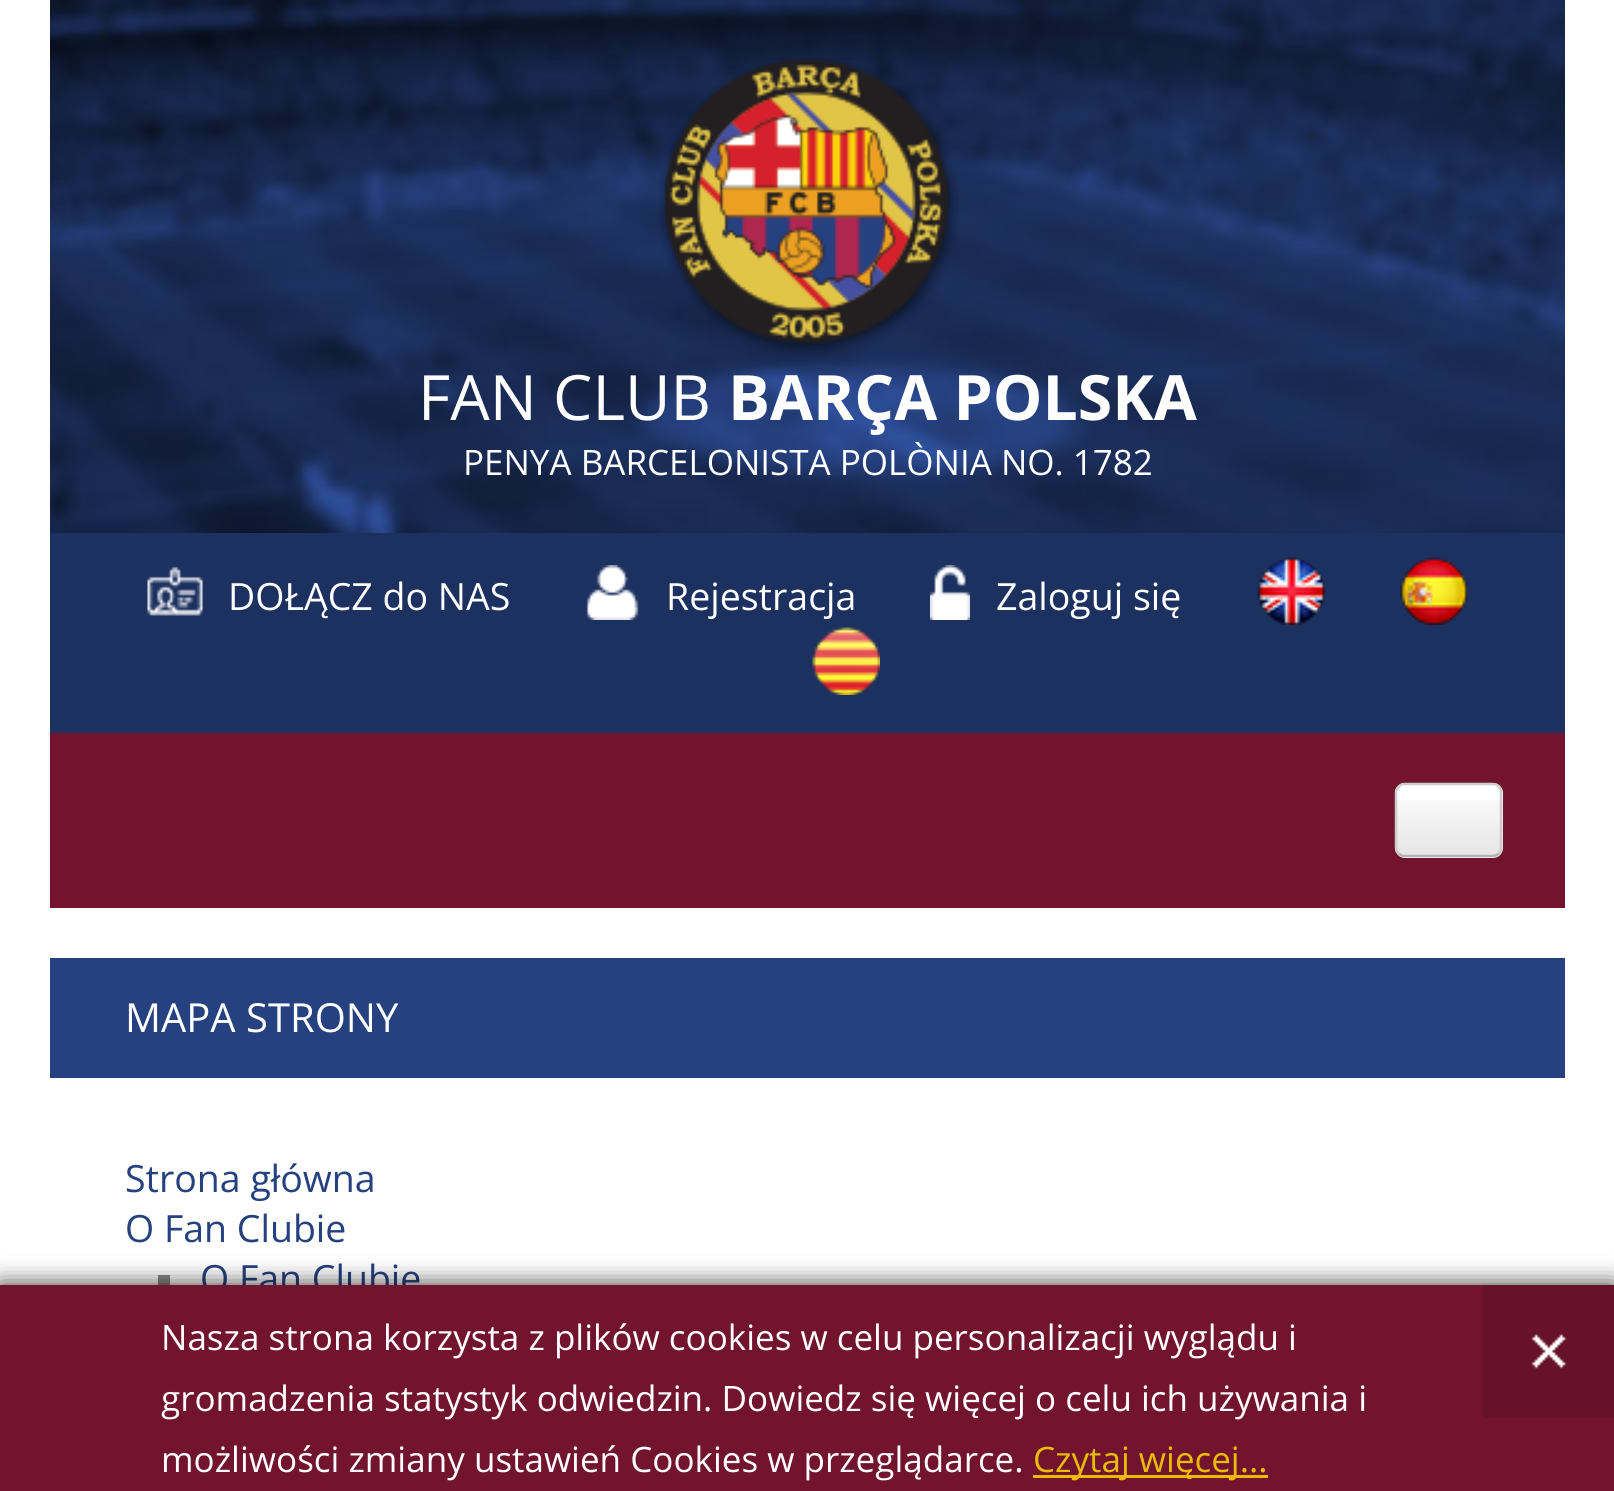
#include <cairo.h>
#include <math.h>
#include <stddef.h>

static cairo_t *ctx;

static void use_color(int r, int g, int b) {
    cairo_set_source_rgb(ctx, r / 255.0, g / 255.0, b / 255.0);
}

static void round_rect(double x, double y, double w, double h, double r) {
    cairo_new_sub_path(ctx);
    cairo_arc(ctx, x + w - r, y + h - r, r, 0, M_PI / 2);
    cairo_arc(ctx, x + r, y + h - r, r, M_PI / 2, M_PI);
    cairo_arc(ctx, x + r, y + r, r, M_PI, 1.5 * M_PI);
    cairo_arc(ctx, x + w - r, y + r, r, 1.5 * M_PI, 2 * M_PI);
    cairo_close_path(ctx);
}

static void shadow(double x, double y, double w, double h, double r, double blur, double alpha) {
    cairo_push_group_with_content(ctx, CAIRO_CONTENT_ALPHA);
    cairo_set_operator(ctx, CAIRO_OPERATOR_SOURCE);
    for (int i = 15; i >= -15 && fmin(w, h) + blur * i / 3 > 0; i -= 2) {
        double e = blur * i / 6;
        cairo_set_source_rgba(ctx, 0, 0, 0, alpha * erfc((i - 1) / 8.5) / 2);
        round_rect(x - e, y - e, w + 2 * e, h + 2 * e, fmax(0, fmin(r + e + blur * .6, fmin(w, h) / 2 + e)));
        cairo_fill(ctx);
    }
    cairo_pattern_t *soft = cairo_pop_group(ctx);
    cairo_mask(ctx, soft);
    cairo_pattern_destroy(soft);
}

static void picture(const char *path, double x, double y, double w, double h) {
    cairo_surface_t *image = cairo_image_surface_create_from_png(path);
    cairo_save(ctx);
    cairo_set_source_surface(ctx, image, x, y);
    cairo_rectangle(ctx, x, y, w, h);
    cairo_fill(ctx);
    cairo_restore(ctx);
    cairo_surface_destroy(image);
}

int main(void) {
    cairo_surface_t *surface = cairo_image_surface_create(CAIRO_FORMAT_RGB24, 1614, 1491);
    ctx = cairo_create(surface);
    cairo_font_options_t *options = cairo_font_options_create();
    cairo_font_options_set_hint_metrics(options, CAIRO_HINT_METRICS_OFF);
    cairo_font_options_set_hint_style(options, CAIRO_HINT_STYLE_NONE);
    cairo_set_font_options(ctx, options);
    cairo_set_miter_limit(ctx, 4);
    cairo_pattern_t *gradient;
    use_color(255, 255, 255);
    cairo_paint(ctx);
    picture("img1.png", 50, 0, 1515, 533);
    picture("img2.png", 659, 57, 300, 299);
    cairo_select_font_face(ctx, "Open Sans", CAIRO_FONT_SLANT_NORMAL, CAIRO_FONT_WEIGHT_NORMAL);
    cairo_set_font_size(ctx, 62.5);
    use_color(255, 255, 255);
    cairo_move_to(ctx, 418, 420);
    cairo_show_text(ctx, "FAN CLUB");
    cairo_select_font_face(ctx, "Open Sans", CAIRO_FONT_SLANT_NORMAL, CAIRO_FONT_WEIGHT_BOLD);
    cairo_move_to(ctx, 728, 420);
    cairo_show_text(ctx, "BARÇA POLSKA");
    cairo_select_font_face(ctx, "Open Sans", CAIRO_FONT_SLANT_NORMAL, CAIRO_FONT_WEIGHT_NORMAL);
    cairo_set_font_size(ctx, 35);
    cairo_move_to(ctx, 463, 475);
    cairo_show_text(ctx, "PENYA BARCELONISTA POLÒNIA NO. 1782");
    use_color(29, 49, 96);
    cairo_rectangle(ctx, 50, 533, 1515, 200);
    cairo_fill(ctx);
    picture("img3.png", 147, 566, 56, 50);
    cairo_set_font_size(ctx, 37.5);
    use_color(255, 255, 255);
    cairo_move_to(ctx, 228, 610);
    cairo_show_text(ctx, "DOŁĄCZ do NAS");
    picture("img4.png", 586, 565, 53, 55);
    cairo_move_to(ctx, 666, 610);
    cairo_show_text(ctx, "Rejestracja");
    picture("img5.png", 930, 565, 40, 55);
    cairo_move_to(ctx, 996, 610);
    cairo_show_text(ctx, "Zaloguj się");
    picture("img6.png", 1257, 557, 68, 68);
    picture("img7.png", 1400, 557, 68, 68);
    picture("img8.png", 812, 627, 68, 68);
    use_color(114, 20, 46);
    cairo_rectangle(ctx, 50, 733, 1515, 175);
    cairo_fill(ctx);
    use_color(255, 255, 255);
    round_rect(1395, 783, 108, 75, 10);
    cairo_fill(ctx);
    cairo_save(ctx);
    round_rect(1395, 783, 108, 75, 10);
    cairo_clip(ctx);
    gradient = cairo_pattern_create_linear(1449, 785, 1449, 855);
    cairo_pattern_add_color_stop_rgba(gradient, 0, 0, 0, 0, 0);
    cairo_pattern_add_color_stop_rgba(gradient, 1, 0, 0, 0, 0.1);
    cairo_set_source(ctx, gradient);
    cairo_pattern_destroy(gradient);
    cairo_rectangle(ctx, 1395, 800, 108, 55);
    cairo_fill(ctx);
    cairo_restore(ctx);
    cairo_new_path(ctx);
    cairo_move_to(ctx, 1498.5, 853.5);
    cairo_curve_to(ctx, 1497, 855.5, 1495, 856, 1492.5, 856);
    cairo_line_to(ctx, 1405, 856);
    cairo_curve_to(ctx, 1402.5, 856, 1400.5, 855.5, 1399, 853.5);
    use_color(179, 179, 179);
    cairo_set_line_width(ctx, 2.5);
    cairo_stroke(ctx);
    cairo_new_path(ctx);
    cairo_move_to(ctx, 1399, 853.5);
    cairo_curve_to(ctx, 1397, 852, 1396, 850, 1396, 847.5);
    cairo_line_to(ctx, 1396, 792.5);
    cairo_curve_to(ctx, 1396, 790, 1397, 788, 1399, 786.5);
    cairo_curve_to(ctx, 1400.5, 784.5, 1402.5, 784, 1405, 784);
    cairo_line_to(ctx, 1492.5, 784);
    cairo_curve_to(ctx, 1495, 784, 1497, 784.5, 1498.5, 786.5);
    cairo_curve_to(ctx, 1500.5, 788, 1501, 790, 1501, 792.5);
    cairo_line_to(ctx, 1501, 847.5);
    cairo_curve_to(ctx, 1501, 850, 1500.5, 852, 1498.5, 853.5);
    use_color(204, 204, 204);
    cairo_stroke(ctx);
    use_color(38, 65, 128);
    cairo_rectangle(ctx, 50, 958, 1515, 120);
    cairo_fill(ctx);
    cairo_set_font_size(ctx, 40);
    use_color(255, 255, 255);
    cairo_move_to(ctx, 125, 1032);
    cairo_show_text(ctx, "MAPA STRONY");
    cairo_set_font_size(ctx, 37.5);
    use_color(38, 65, 128);
    cairo_move_to(ctx, 125, 1192);
    cairo_show_text(ctx, "Strona główna");
    cairo_move_to(ctx, 125, 1242);
    cairo_show_text(ctx, "O Fan Clubie");
    use_color(139, 139, 139);
    cairo_rectangle(ctx, 158, 1275, 12, 10);
    cairo_fill(ctx);
    use_color(38, 65, 128);
    cairo_move_to(ctx, 200, 1292);
    cairo_show_text(ctx, "O Fan Clubie");
    use_color(0, 0, 0);
    shadow(0, 1285, 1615, 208, 0, 12.5, 0.8);
    use_color(114, 20, 46);
    cairo_rectangle(ctx, 0, 1285, 1614, 206);
    cairo_fill(ctx);
    cairo_select_font_face(ctx, "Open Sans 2", CAIRO_FONT_SLANT_NORMAL, CAIRO_FONT_WEIGHT_NORMAL);
    cairo_set_font_size(ctx, 35);
    use_color(255, 255, 255);
    cairo_move_to(ctx, 161, 1350);
    cairo_show_text(ctx, "Nasza strona korzysta z plików cookies w celu personalizacji wyglądu i");
    cairo_move_to(ctx, 161, 1411);
    cairo_show_text(ctx, "gromadzenia statystyk odwiedzin. Dowiedz się więcej o celu ich używania i");
    cairo_move_to(ctx, 161, 1472);
    cairo_show_text(ctx, "możliwości zmiany ustawień Cookies w przeglądarce.");
    use_color(236, 186, 0);
    cairo_rectangle(ctx, 1033, 1475, 235, 3);
    cairo_fill(ctx);
    cairo_move_to(ctx, 1033, 1472);
    cairo_show_text(ctx, "Czytaj więcej...");
    use_color(102, 18, 42);
    cairo_rectangle(ctx, 1483, 1285, 131, 133);
    cairo_fill(ctx);
    picture("img9.png", 1531, 1334, 35, 35);
    cairo_surface_write_to_png(surface, "result.png");
    cairo_font_options_destroy(options);
    cairo_destroy(ctx);
    cairo_surface_destroy(surface);
    return 0;
}
